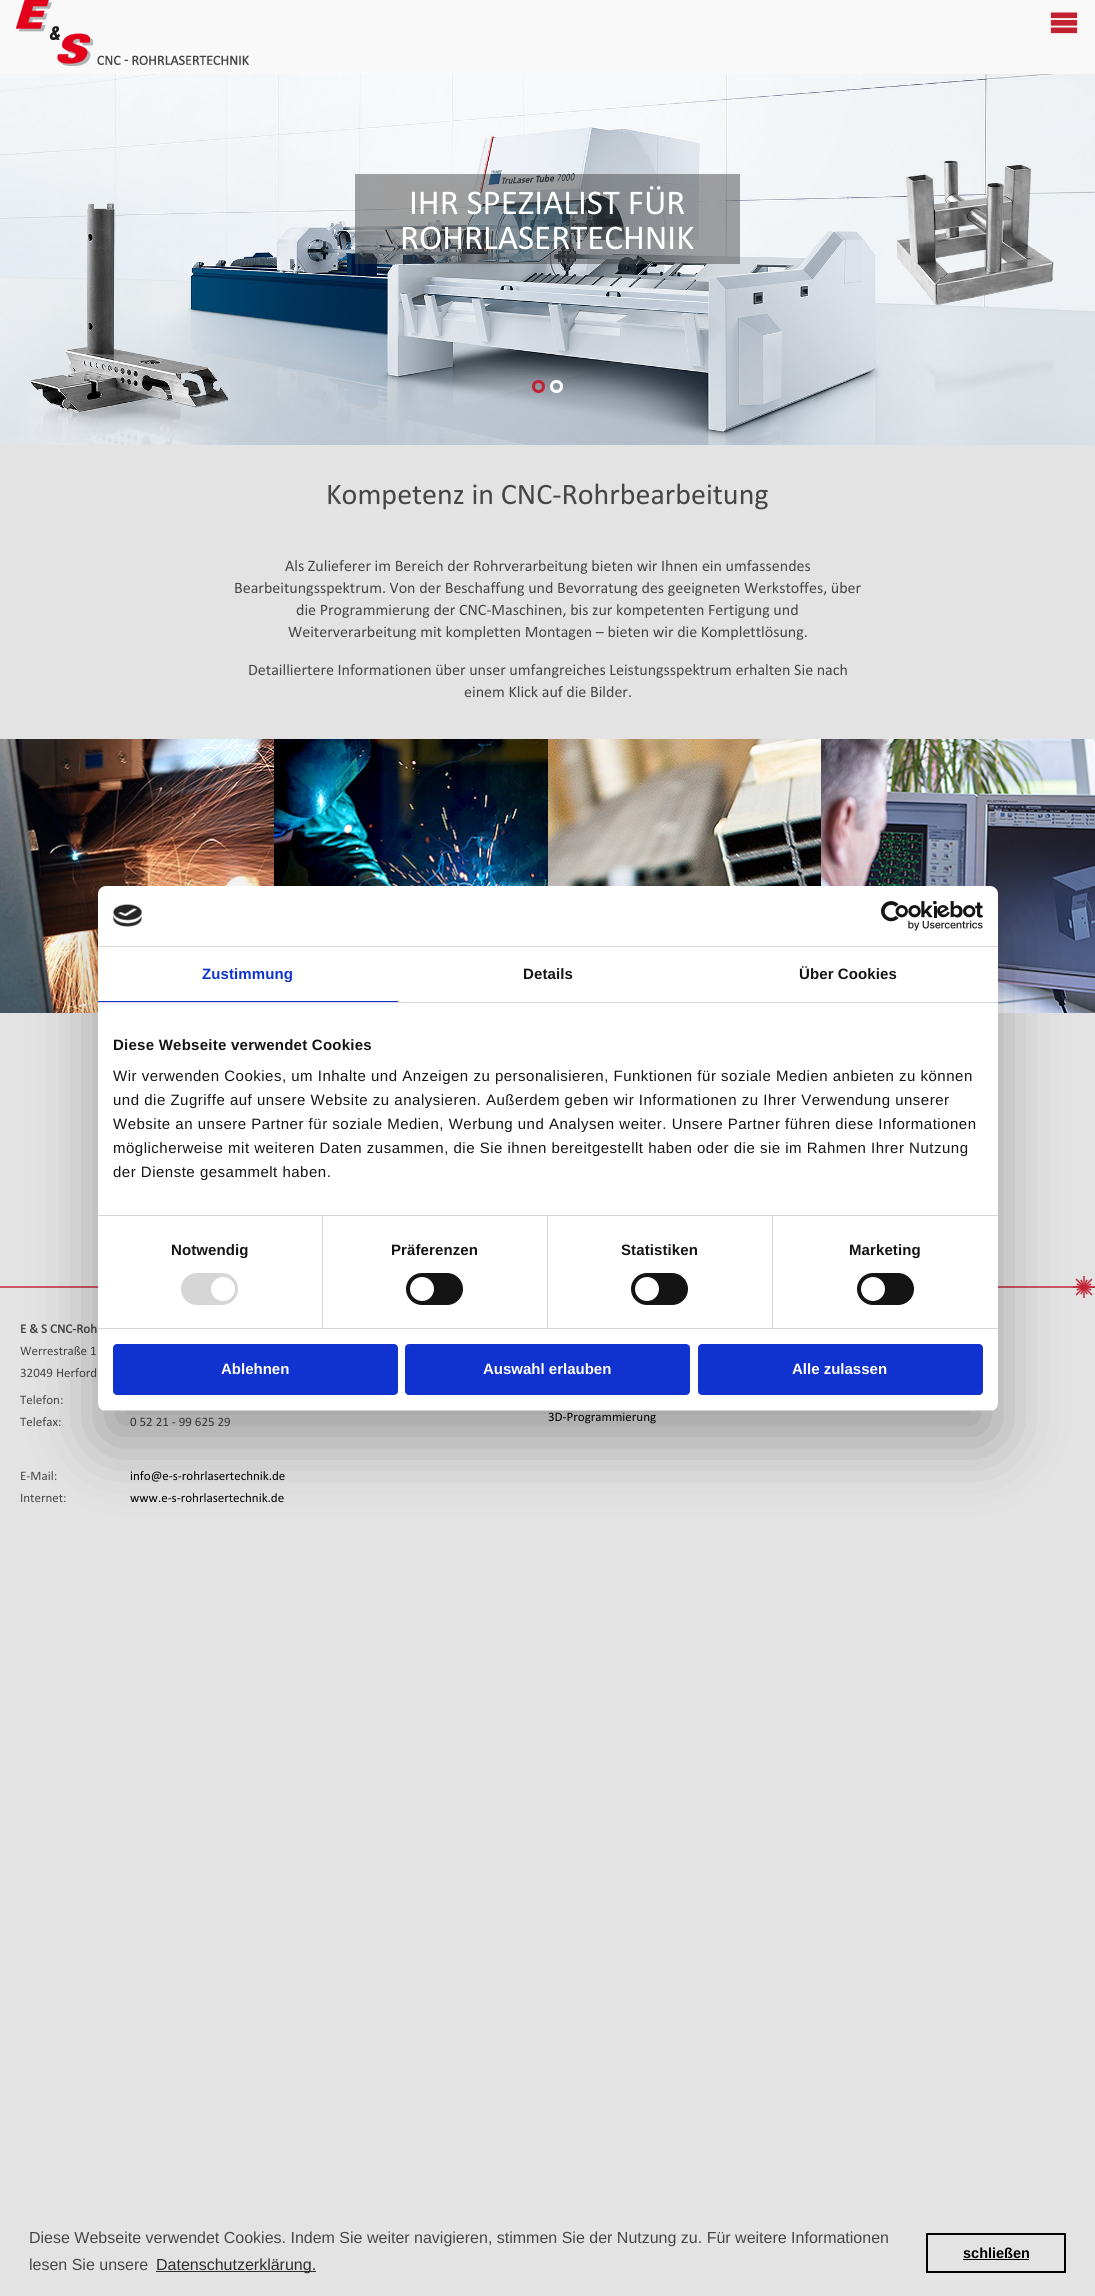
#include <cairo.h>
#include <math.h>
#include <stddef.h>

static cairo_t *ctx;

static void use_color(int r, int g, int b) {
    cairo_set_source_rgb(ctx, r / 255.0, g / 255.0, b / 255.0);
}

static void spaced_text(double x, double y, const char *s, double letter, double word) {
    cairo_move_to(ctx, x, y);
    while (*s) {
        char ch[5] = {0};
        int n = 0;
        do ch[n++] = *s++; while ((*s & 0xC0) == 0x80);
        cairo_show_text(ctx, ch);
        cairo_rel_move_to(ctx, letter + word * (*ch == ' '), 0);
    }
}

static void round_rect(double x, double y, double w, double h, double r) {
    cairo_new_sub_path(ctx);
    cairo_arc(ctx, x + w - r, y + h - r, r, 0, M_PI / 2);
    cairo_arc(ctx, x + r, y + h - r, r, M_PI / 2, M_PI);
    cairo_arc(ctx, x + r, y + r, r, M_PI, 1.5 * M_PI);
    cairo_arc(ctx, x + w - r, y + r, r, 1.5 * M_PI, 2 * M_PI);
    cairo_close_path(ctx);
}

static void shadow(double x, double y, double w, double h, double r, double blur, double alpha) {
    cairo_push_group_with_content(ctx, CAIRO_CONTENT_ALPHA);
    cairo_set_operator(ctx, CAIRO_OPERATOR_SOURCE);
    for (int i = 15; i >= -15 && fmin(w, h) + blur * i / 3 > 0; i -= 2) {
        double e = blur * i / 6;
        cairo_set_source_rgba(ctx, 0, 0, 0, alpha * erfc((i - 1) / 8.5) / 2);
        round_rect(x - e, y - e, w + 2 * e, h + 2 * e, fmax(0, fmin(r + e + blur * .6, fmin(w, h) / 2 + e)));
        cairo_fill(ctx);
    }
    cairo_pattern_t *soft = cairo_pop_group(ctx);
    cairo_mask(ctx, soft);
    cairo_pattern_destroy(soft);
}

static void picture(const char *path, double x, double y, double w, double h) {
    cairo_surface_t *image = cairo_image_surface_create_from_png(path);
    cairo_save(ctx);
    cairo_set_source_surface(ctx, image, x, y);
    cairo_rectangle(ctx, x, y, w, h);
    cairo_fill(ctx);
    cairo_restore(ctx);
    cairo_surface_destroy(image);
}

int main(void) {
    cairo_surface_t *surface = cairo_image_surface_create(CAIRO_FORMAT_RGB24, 1095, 2296);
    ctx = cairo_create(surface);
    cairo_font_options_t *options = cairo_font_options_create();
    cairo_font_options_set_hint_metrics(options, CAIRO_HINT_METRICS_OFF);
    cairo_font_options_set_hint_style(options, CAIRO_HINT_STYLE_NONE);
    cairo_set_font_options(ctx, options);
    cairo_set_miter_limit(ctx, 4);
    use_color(227, 227, 227);
    cairo_paint(ctx);
    use_color(249, 249, 249);
    cairo_rectangle(ctx, 0, 0, 1095, 74);
    cairo_fill(ctx);
    picture("img1.png", 16, 0, 233, 66);
    picture("img2.png", 1050, 12, 28, 22);
    picture("img3.png", 0, 74, 1095, 371);
    cairo_set_source_rgba(ctx, 0.275, 0.275, 0.275, 0.5);
    cairo_rectangle(ctx, 355, 174, 385, 90);
    cairo_fill(ctx);
    cairo_select_font_face(ctx, "Calibri", CAIRO_FONT_SLANT_NORMAL, CAIRO_FONT_WEIGHT_NORMAL);
    cairo_set_font_size(ctx, 35);
    use_color(255, 255, 255);
    cairo_move_to(ctx, 409, 214);
    cairo_show_text(ctx, "IHR SPEZIALIST FÜR");
    cairo_move_to(ctx, 400, 249);
    cairo_show_text(ctx, "ROHRLASERTECHNIK");
    cairo_new_path(ctx);
    cairo_arc(ctx, 538.5, 386.5, 5, 0, 2 * M_PI);
    use_color(194, 33, 49);
    cairo_set_line_width(ctx, 3);
    cairo_stroke(ctx);
    cairo_arc(ctx, 556.5, 386.5, 5, 0, 2 * M_PI);
    use_color(255, 255, 255);
    cairo_stroke(ctx);
    cairo_set_font_size(ctx, 30);
    use_color(70, 70, 70);
    cairo_move_to(ctx, 326, 504);
    cairo_show_text(ctx, "Kompetenz in CNC-Rohrbearbeitung");
    cairo_set_font_size(ctx, 16);
    cairo_move_to(ctx, 285, 571);
    cairo_show_text(ctx, "Als Zulieferer im Bereich der Rohrverarbeitung bieten wir Ihnen ein umfassendes");
    cairo_move_to(ctx, 234, 593);
    cairo_show_text(ctx, "Bearbeitungsspektrum. Von der Beschaffung und Bevorratung des geeigneten Werkstoffes, über");
    cairo_move_to(ctx, 296, 615);
    cairo_show_text(ctx, "die Programmierung der CNC-Maschinen, bis zur kompetenten Fertigung und");
    cairo_move_to(ctx, 288, 637);
    cairo_show_text(ctx, "Weiterverarbeitung mit kompletten Montagen – bieten wir die Komplettlösung.");
    cairo_move_to(ctx, 248, 675);
    cairo_show_text(ctx, "Detailliertere Informationen über unser umfangreiches Leistungsspektrum erhalten Sie nach");
    cairo_move_to(ctx, 464, 697);
    cairo_show_text(ctx, "einem Klick auf die Bilder.");
    picture("img4.png", 0, 739, 274, 274);
    picture("img5.png", 274, 739, 274, 147);
    picture("img6.png", 548, 739, 273, 147);
    picture("img7.png", 821, 739, 274, 274);
    use_color(203, 87, 99);
    cairo_rectangle(ctx, 0, 1286, 1095, 2);
    cairo_fill(ctx);
    picture("img8.png", 1073, 1276, 22, 22);
    cairo_select_font_face(ctx, "Calibri", CAIRO_FONT_SLANT_NORMAL, CAIRO_FONT_WEIGHT_BOLD);
    cairo_set_font_size(ctx, 13);
    use_color(70, 70, 70);
    cairo_move_to(ctx, 20, 1333);
    cairo_show_text(ctx, "E & S CNC-Roh");
    cairo_select_font_face(ctx, "Calibri", CAIRO_FONT_SLANT_NORMAL, CAIRO_FONT_WEIGHT_NORMAL);
    cairo_move_to(ctx, 20, 1355);
    cairo_show_text(ctx, "Werrestraße 1");
    cairo_move_to(ctx, 20, 1377);
    cairo_show_text(ctx, "32049 Herford");
    cairo_move_to(ctx, 20, 1404);
    cairo_show_text(ctx, "Telefon:");
    cairo_move_to(ctx, 20, 1426);
    cairo_show_text(ctx, "Telefax:");
    cairo_move_to(ctx, 130, 1426);
    cairo_show_text(ctx, "0 52 21 - 99 625 29");
    cairo_move_to(ctx, 20, 1480);
    cairo_show_text(ctx, "E-Mail:");
    use_color(0, 0, 0);
    cairo_move_to(ctx, 130, 1480);
    cairo_show_text(ctx, "info@e-s-rohrlasertechnik.de");
    use_color(70, 70, 70);
    cairo_move_to(ctx, 20, 1502);
    cairo_show_text(ctx, "Internet:");
    use_color(0, 0, 0);
    cairo_move_to(ctx, 130, 1502);
    cairo_show_text(ctx, "www.e-s-rohrlasertechnik.de");
    cairo_move_to(ctx, 548, 1421);
    cairo_show_text(ctx, "3D-Programmierung");
    use_color(0, 0, 0);
    shadow(98, 918, 900, 525, 8, 34, 0.3);
    use_color(255, 255, 255);
    round_rect(98, 886, 900, 525, 8);
    cairo_fill(ctx);
    use_color(214, 214, 214);
    cairo_rectangle(ctx, 98, 946, 900, 1);
    cairo_fill(ctx);
    picture("img9.png", 112, 904, 30, 23);
    picture("img10.png", 881, 901, 102, 30);
    cairo_rectangle(ctx, 98, 1002, 900, 1);
    cairo_fill(ctx);
    use_color(16, 50, 207);
    cairo_rectangle(ctx, 98, 1001, 300, 1);
    cairo_fill(ctx);
    cairo_select_font_face(ctx, "Liberation Sans", CAIRO_FONT_SLANT_NORMAL, CAIRO_FONT_WEIGHT_BOLD);
    cairo_set_font_size(ctx, 15);
    spaced_text(202, 979, "Zustimmung", 0.1, 0);
    use_color(20, 20, 20);
    spaced_text(523, 979, "Details", 0.1, 0);
    spaced_text(799, 979, "Über Cookies", 0.1, 0);
    use_color(214, 214, 214);
    cairo_rectangle(ctx, 98, 1215, 900, 1);
    cairo_fill(ctx);
    use_color(20, 20, 20);
    spaced_text(113, 1050, "Diese Webseite verwendet Cookies", 0.25, 0);
    cairo_select_font_face(ctx, "Liberation Sans", CAIRO_FONT_SLANT_NORMAL, CAIRO_FONT_WEIGHT_NORMAL);
    spaced_text(113, 1081, "Wir verwenden Cookies, um Inhalte und Anzeigen zu personalisieren, Funktionen für soziale Medien anbieten zu können", 0.5, 0);
    spaced_text(113, 1105, "und die Zugriffe auf unsere Website zu analysieren. Außerdem geben wir Informationen zu Ihrer Verwendung unserer", 0.5, 0);
    spaced_text(113, 1129, "Website an unsere Partner für soziale Medien, Werbung und Analysen weiter. Unsere Partner führen diese Informationen", 0.5, 0);
    spaced_text(113, 1153, "möglicherweise mit weiteren Daten zusammen, die Sie ihnen bereitgestellt haben oder die sie im Rahmen Ihrer Nutzung", 0.5, 0);
    spaced_text(113, 1177, "der Dienste gesammelt haben.", 0.5, 0);
    use_color(214, 214, 214);
    cairo_rectangle(ctx, 98, 1328, 900, 1);
    cairo_fill(ctx);
    cairo_rectangle(ctx, 322, 1216, 1, 112);
    cairo_fill(ctx);
    cairo_select_font_face(ctx, "Liberation Sans", CAIRO_FONT_SLANT_NORMAL, CAIRO_FONT_WEIGHT_BOLD);
    use_color(20, 20, 20);
    spaced_text(171, 1255, "Notwendig", 0.1, 0);
    use_color(214, 214, 214);
    round_rect(181, 1273, 57, 32, 16);
    cairo_fill(ctx);
    use_color(255, 255, 255);
    cairo_arc(ctx, 223, 1289, 12, 0, 2 * M_PI);
    cairo_fill(ctx);
    use_color(214, 214, 214);
    cairo_rectangle(ctx, 547, 1216, 1, 112);
    cairo_fill(ctx);
    use_color(20, 20, 20);
    spaced_text(391, 1255, "Präferenzen", 0.1, 0);
    round_rect(406, 1273, 57, 32, 16);
    cairo_fill(ctx);
    use_color(255, 255, 255);
    cairo_arc(ctx, 422, 1289, 12, 0, 2 * M_PI);
    cairo_fill(ctx);
    use_color(214, 214, 214);
    cairo_rectangle(ctx, 772, 1216, 1, 112);
    cairo_fill(ctx);
    use_color(20, 20, 20);
    spaced_text(621, 1255, "Statistiken", 0.1, 0);
    round_rect(631, 1273, 57, 32, 16);
    cairo_fill(ctx);
    use_color(255, 255, 255);
    cairo_arc(ctx, 647, 1289, 12, 0, 2 * M_PI);
    cairo_fill(ctx);
    use_color(20, 20, 20);
    spaced_text(849, 1255, "Marketing", 0.1, 0);
    round_rect(857, 1273, 57, 32, 16);
    cairo_fill(ctx);
    use_color(255, 255, 255);
    cairo_arc(ctx, 873, 1289, 12, 0, 2 * M_PI);
    cairo_fill(ctx);
    cairo_save(ctx);
    round_rect(98, 886, 900, 525, 8);
    cairo_clip(ctx);
    use_color(214, 214, 214);
    cairo_rectangle(ctx, 98, 1410, 900, 1);
    cairo_fill(ctx);
    cairo_restore(ctx);
    use_color(16, 50, 207);
    round_rect(114, 1345, 283, 49, 3);
    cairo_fill_preserve(ctx);
    cairo_set_line_width(ctx, 2);
    cairo_stroke(ctx);
    use_color(255, 255, 255);
    cairo_move_to(ctx, 221, 1374);
    cairo_show_text(ctx, "Ablehnen");
    use_color(16, 50, 207);
    round_rect(406, 1345, 283, 49, 3);
    cairo_fill_preserve(ctx);
    cairo_stroke(ctx);
    use_color(255, 255, 255);
    cairo_move_to(ctx, 483, 1374);
    cairo_show_text(ctx, "Auswahl erlauben");
    use_color(16, 50, 207);
    round_rect(699, 1345, 283, 49, 3);
    cairo_fill_preserve(ctx);
    cairo_stroke(ctx);
    use_color(255, 255, 255);
    cairo_move_to(ctx, 792, 1374);
    cairo_show_text(ctx, "Alle zulassen");
    cairo_select_font_face(ctx, "Liberation Sans", CAIRO_FONT_SLANT_NORMAL, CAIRO_FONT_WEIGHT_NORMAL);
    cairo_set_font_size(ctx, 16);
    use_color(70, 70, 70);
    cairo_move_to(ctx, 29, 2243);
    cairo_show_text(ctx, "Diese Webseite verwendet Cookies. Indem Sie weiter navigieren, stimmen Sie der Nutzung zu. Für weitere Informationen");
    cairo_move_to(ctx, 29, 2270);
    cairo_show_text(ctx, "lesen Sie unsere");
    use_color(45, 45, 45);
    cairo_rectangle(ctx, 156, 2271, 160, 1);
    cairo_fill(ctx);
    cairo_move_to(ctx, 156, 2270);
    cairo_show_text(ctx, "Datenschutzerklärung.");
    cairo_rectangle(ctx, 927, 2234, 138, 38);
    use_color(0, 0, 0);
    cairo_stroke(ctx);
    cairo_select_font_face(ctx, "Liberation Sans", CAIRO_FONT_SLANT_NORMAL, CAIRO_FONT_WEIGHT_BOLD);
    cairo_set_font_size(ctx, 14.5);
    cairo_move_to(ctx, 963, 2258);
    cairo_show_text(ctx, "schließen");
    cairo_rectangle(ctx, 963, 2259, 66, 1);
    cairo_fill(ctx);
    cairo_surface_write_to_png(surface, "result.png");
    cairo_font_options_destroy(options);
    cairo_destroy(ctx);
    cairo_surface_destroy(surface);
    return 0;
}
